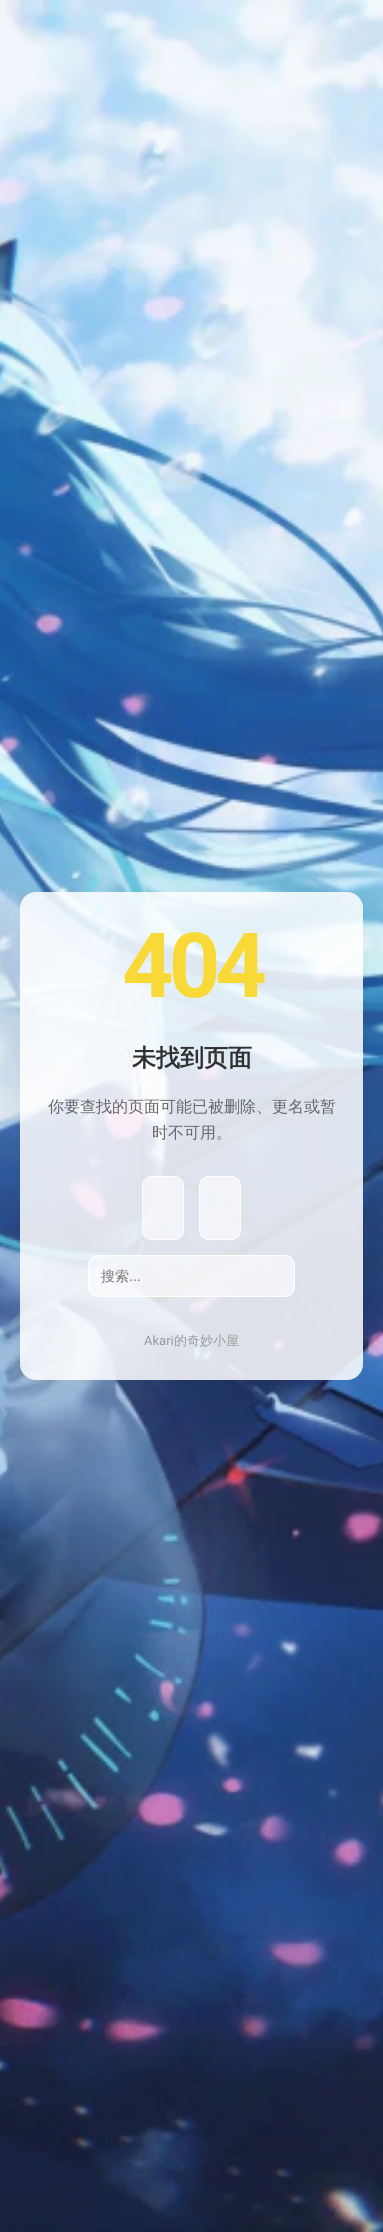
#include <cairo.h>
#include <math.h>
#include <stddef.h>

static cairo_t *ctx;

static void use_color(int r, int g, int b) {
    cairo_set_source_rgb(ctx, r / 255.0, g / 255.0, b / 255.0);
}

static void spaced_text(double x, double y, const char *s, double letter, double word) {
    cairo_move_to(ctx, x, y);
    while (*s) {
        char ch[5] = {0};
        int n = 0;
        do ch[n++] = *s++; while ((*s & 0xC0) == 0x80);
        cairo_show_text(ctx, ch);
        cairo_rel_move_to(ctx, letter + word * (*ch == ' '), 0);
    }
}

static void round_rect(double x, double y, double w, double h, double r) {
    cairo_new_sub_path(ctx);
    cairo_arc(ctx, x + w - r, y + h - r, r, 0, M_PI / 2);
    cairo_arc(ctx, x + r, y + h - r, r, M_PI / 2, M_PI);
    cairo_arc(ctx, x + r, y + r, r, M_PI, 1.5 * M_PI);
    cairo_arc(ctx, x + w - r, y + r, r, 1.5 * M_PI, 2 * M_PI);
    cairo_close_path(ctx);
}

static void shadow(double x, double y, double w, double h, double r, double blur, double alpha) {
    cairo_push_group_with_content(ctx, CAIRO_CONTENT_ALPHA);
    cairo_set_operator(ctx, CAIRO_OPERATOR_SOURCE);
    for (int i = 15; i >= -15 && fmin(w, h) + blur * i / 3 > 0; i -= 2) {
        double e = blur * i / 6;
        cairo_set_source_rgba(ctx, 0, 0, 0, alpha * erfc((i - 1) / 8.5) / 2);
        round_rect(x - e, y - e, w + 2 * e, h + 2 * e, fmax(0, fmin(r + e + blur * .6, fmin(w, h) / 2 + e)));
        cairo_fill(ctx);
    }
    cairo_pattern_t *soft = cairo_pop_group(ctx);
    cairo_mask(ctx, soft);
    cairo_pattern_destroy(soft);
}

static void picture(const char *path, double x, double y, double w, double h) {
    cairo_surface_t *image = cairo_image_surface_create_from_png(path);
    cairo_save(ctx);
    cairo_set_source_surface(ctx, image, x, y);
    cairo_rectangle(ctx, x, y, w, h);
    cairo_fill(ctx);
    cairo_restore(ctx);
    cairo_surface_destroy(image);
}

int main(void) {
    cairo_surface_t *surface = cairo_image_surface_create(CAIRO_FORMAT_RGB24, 383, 2232);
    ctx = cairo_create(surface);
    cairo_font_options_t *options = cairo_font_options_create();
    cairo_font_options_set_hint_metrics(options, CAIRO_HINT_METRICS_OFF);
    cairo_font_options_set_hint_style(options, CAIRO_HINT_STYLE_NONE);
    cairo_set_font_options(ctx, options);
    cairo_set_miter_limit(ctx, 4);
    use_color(255, 255, 255);
    cairo_paint(ctx);
    picture("img1.png", 0, 0, 383, 2232);
    cairo_save(ctx);
    cairo_set_fill_rule(ctx, CAIRO_FILL_RULE_EVEN_ODD);
    cairo_new_path(ctx);
    cairo_move_to(ctx, 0, 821);
    cairo_line_to(ctx, 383, 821);
    cairo_line_to(ctx, 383, 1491);
    cairo_line_to(ctx, 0, 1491);
    cairo_close_path(ctx);
    cairo_move_to(ctx, 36, 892);
    cairo_line_to(ctx, 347, 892);
    cairo_curve_to(ctx, 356, 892, 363, 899, 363, 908);
    cairo_line_to(ctx, 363, 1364);
    cairo_curve_to(ctx, 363, 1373, 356, 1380, 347, 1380);
    cairo_line_to(ctx, 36, 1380);
    cairo_curve_to(ctx, 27, 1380, 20, 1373, 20, 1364);
    cairo_line_to(ctx, 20, 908);
    cairo_curve_to(ctx, 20, 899, 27, 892, 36, 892);
    cairo_close_path(ctx);
    cairo_clip(ctx);
    use_color(0, 0, 0);
    shadow(20, 912, 343, 488, 16, 30, 0.08);
    cairo_restore(ctx);
    cairo_set_source_rgba(ctx, 1, 1, 1, 0.85);
    round_rect(20, 892, 343, 488, 16);
    cairo_fill(ctx);
    cairo_select_font_face(ctx, "Roboto", CAIRO_FONT_SLANT_NORMAL, CAIRO_FONT_WEIGHT_BOLD);
    cairo_set_font_size(ctx, 90);
    use_color(249, 217, 56);
    spaced_text(122, 997, "404", -5, 0);
    cairo_select_font_face(ctx, "WenQuanYi Zen Hei", CAIRO_FONT_SLANT_NORMAL, CAIRO_FONT_WEIGHT_BOLD);
    cairo_set_font_size(ctx, 24);
    use_color(48, 48, 48);
    cairo_move_to(ctx, 132, 1066);
    cairo_show_text(ctx, "未找到页面");
    cairo_select_font_face(ctx, "WenQuanYi Zen Hei Medium", CAIRO_FONT_SLANT_NORMAL, CAIRO_FONT_WEIGHT_NORMAL);
    cairo_set_font_size(ctx, 16);
    use_color(102, 102, 102);
    cairo_move_to(ctx, 48, 1112);
    cairo_show_text(ctx, "你要查找的页面可能已被删除、更名或暂");
    cairo_move_to(ctx, 152, 1138);
    cairo_show_text(ctx, "时不可用。");
    cairo_set_source_rgba(ctx, 1, 1, 1, 0.6);
    round_rect(142.5, 1176.5, 41, 63, 9.5);
    cairo_fill_preserve(ctx);
    use_color(255, 255, 255);
    cairo_set_line_width(ctx, 1);
    cairo_stroke(ctx);
    cairo_set_source_rgba(ctx, 1, 1, 1, 0.6);
    round_rect(199.5, 1176.5, 41, 63, 9.5);
    cairo_fill_preserve(ctx);
    use_color(255, 255, 255);
    cairo_stroke(ctx);
    cairo_set_source_rgba(ctx, 1, 1, 1, 0.6);
    round_rect(88.5, 1255.5, 206, 41, 9.5);
    cairo_fill_preserve(ctx);
    use_color(255, 255, 255);
    cairo_stroke(ctx);
    cairo_set_font_size(ctx, 14);
    use_color(117, 117, 117);
    cairo_move_to(ctx, 101, 1281);
    cairo_show_text(ctx, "搜索");
    cairo_select_font_face(ctx, "Liberation Sans", CAIRO_FONT_SLANT_NORMAL, CAIRO_FONT_WEIGHT_NORMAL);
    cairo_move_to(ctx, 129, 1281);
    cairo_show_text(ctx, "...");
    cairo_select_font_face(ctx, "Roboto", CAIRO_FONT_SLANT_NORMAL, CAIRO_FONT_WEIGHT_NORMAL);
    cairo_set_font_size(ctx, 13);
    use_color(153, 153, 153);
    cairo_move_to(ctx, 144, 1345);
    cairo_show_text(ctx, "Akari");
    cairo_select_font_face(ctx, "WenQuanYi Zen Hei Medium", CAIRO_FONT_SLANT_NORMAL, CAIRO_FONT_WEIGHT_NORMAL);
    cairo_move_to(ctx, 174, 1345);
    cairo_show_text(ctx, "的奇妙小屋");
    cairo_surface_write_to_png(surface, "result.png");
    cairo_font_options_destroy(options);
    cairo_destroy(ctx);
    cairo_surface_destroy(surface);
    return 0;
}
